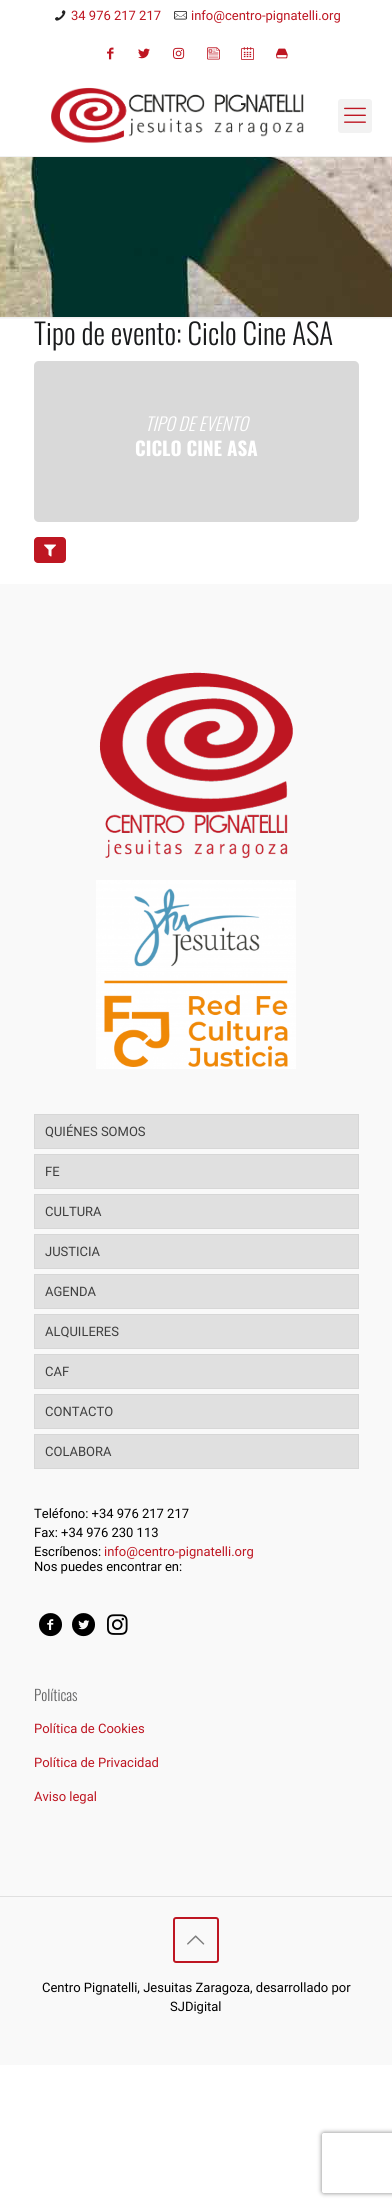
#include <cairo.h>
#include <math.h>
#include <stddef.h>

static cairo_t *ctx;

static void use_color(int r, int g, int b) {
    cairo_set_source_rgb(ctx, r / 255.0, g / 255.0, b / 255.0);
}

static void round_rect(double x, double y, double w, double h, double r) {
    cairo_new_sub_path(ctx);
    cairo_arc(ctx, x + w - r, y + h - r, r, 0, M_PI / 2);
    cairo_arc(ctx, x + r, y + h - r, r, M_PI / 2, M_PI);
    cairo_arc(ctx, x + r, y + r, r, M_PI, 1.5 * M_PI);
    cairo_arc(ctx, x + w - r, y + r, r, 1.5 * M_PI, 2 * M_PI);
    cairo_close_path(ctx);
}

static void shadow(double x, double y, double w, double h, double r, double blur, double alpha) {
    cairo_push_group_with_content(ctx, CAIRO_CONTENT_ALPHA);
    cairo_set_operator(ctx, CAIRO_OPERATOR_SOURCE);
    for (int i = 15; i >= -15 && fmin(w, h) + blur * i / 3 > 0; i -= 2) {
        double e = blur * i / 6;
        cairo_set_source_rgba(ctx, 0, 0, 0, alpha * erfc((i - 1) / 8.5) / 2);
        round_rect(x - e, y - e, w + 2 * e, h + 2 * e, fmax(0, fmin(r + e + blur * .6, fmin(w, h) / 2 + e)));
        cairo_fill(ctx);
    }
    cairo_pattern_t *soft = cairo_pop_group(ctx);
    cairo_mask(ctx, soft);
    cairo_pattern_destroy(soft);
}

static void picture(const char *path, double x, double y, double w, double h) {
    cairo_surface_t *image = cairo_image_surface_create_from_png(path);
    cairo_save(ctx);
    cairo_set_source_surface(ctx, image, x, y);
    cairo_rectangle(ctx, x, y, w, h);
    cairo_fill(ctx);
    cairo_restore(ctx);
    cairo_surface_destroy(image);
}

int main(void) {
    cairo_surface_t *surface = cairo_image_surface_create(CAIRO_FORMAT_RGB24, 392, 2207);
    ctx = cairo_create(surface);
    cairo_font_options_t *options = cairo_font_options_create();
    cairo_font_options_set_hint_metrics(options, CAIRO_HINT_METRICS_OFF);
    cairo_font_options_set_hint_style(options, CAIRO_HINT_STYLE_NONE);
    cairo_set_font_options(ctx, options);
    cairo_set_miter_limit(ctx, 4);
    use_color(255, 255, 255);
    cairo_paint(ctx);
    picture("img1.png", 0, 157, 392, 160);
    picture("img2.png", 55, 10, 11, 11);
    cairo_select_font_face(ctx, "Roboto", CAIRO_FONT_SLANT_NORMAL, CAIRO_FONT_WEIGHT_NORMAL);
    cairo_set_font_size(ctx, 13);
    use_color(190, 22, 34);
    cairo_move_to(ctx, 71, 20);
    cairo_show_text(ctx, "34 976 217 217");
    picture("img3.png", 174, 11, 13, 9);
    cairo_move_to(ctx, 191, 20);
    cairo_show_text(ctx, "info@centro-pignatelli.org");
    picture("img4.png", 107, 47, 7, 13);
    picture("img5.png", 138, 48, 12, 11);
    picture("img6.png", 173, 47, 12, 12);
    picture("img7.png", 207, 47, 13, 13);
    picture("img8.png", 241, 47, 13, 13);
    picture("img9.png", 276, 48, 12, 11);
    use_color(242, 242, 242);
    cairo_rectangle(ctx, 0, 156, 392, 1);
    cairo_fill(ctx);
    picture("img10.png", 51, 87, 253, 57);
    round_rect(338, 99, 34, 34, 3);
    cairo_fill(ctx);
    picture("img11.png", 344, 107, 22, 16);
    picture("img12.png", 0, 317, 392, 2);
    cairo_select_font_face(ctx, "Oswald Light", CAIRO_FONT_SLANT_NORMAL, CAIRO_FONT_WEIGHT_NORMAL);
    cairo_set_font_size(ctx, 29);
    use_color(26, 27, 28);
    cairo_move_to(ctx, 34, 345);
    cairo_show_text(ctx, "Tipo de evento: Ciclo Cine ASA");
    use_color(220, 220, 220);
    round_rect(34, 361, 325, 161, 5);
    cairo_fill(ctx);
    cairo_set_source_rgba(ctx, 0.839, 0.839, 0.839, 0.5);
    round_rect(34, 361, 325, 161, 5);
    cairo_fill(ctx);
    cairo_select_font_face(ctx, "Oswald Light", CAIRO_FONT_SLANT_ITALIC, CAIRO_FONT_WEIGHT_NORMAL);
    cairo_set_font_size(ctx, 18);
    use_color(255, 255, 255);
    cairo_move_to(ctx, 145, 431);
    cairo_show_text(ctx, "TIPO DE EVENTO");
    cairo_select_font_face(ctx, "Oswald", CAIRO_FONT_SLANT_NORMAL, CAIRO_FONT_WEIGHT_BOLD);
    cairo_set_font_size(ctx, 19);
    cairo_move_to(ctx, 135, 456);
    cairo_show_text(ctx, "CICLO CINE ASA");
    use_color(190, 23, 34);
    round_rect(34, 537, 32, 26, 4);
    cairo_fill(ctx);
    picture("img13.png", 44, 544, 12, 13);
    use_color(249, 249, 249);
    cairo_rectangle(ctx, 0, 584, 392, 1481);
    cairo_fill(ctx);
    picture("img14.png", 99, 672, 194, 187);
    picture("img15.png", 96, 880, 200, 189);
    use_color(224, 224, 224);
    cairo_rectangle(ctx, 34.5, 1114.5, 324, 34);
    cairo_fill_preserve(ctx);
    use_color(215, 215, 215);
    cairo_set_line_width(ctx, 1);
    cairo_stroke(ctx);
    cairo_select_font_face(ctx, "Roboto", CAIRO_FONT_SLANT_NORMAL, CAIRO_FONT_WEIGHT_NORMAL);
    cairo_set_font_size(ctx, 13);
    use_color(62, 62, 62);
    cairo_move_to(ctx, 45, 1136);
    cairo_show_text(ctx, "QUIÉNES SOMOS");
    use_color(224, 224, 224);
    cairo_rectangle(ctx, 34.5, 1154.5, 324, 34);
    cairo_fill_preserve(ctx);
    use_color(215, 215, 215);
    cairo_stroke(ctx);
    use_color(62, 62, 62);
    cairo_move_to(ctx, 45, 1176);
    cairo_show_text(ctx, "FE");
    use_color(224, 224, 224);
    cairo_rectangle(ctx, 34.5, 1194.5, 324, 34);
    cairo_fill_preserve(ctx);
    use_color(215, 215, 215);
    cairo_stroke(ctx);
    use_color(62, 62, 62);
    cairo_move_to(ctx, 45, 1216);
    cairo_show_text(ctx, "CULTURA");
    use_color(224, 224, 224);
    cairo_rectangle(ctx, 34.5, 1234.5, 324, 34);
    cairo_fill_preserve(ctx);
    use_color(215, 215, 215);
    cairo_stroke(ctx);
    use_color(62, 62, 62);
    cairo_move_to(ctx, 45, 1256);
    cairo_show_text(ctx, "JUSTICIA");
    use_color(224, 224, 224);
    cairo_rectangle(ctx, 34.5, 1274.5, 324, 34);
    cairo_fill_preserve(ctx);
    use_color(215, 215, 215);
    cairo_stroke(ctx);
    use_color(62, 62, 62);
    cairo_move_to(ctx, 45, 1296);
    cairo_show_text(ctx, "AGENDA");
    use_color(224, 224, 224);
    cairo_rectangle(ctx, 34.5, 1314.5, 324, 34);
    cairo_fill_preserve(ctx);
    use_color(215, 215, 215);
    cairo_stroke(ctx);
    use_color(62, 62, 62);
    cairo_move_to(ctx, 45, 1336);
    cairo_show_text(ctx, "ALQUILERES");
    use_color(224, 224, 224);
    cairo_rectangle(ctx, 34.5, 1354.5, 324, 34);
    cairo_fill_preserve(ctx);
    use_color(215, 215, 215);
    cairo_stroke(ctx);
    use_color(62, 62, 62);
    cairo_move_to(ctx, 45, 1376);
    cairo_show_text(ctx, "CAF");
    use_color(224, 224, 224);
    cairo_rectangle(ctx, 34.5, 1394.5, 324, 34);
    cairo_fill_preserve(ctx);
    use_color(215, 215, 215);
    cairo_stroke(ctx);
    use_color(62, 62, 62);
    cairo_move_to(ctx, 45, 1416);
    cairo_show_text(ctx, "CONTACTO");
    use_color(224, 224, 224);
    cairo_rectangle(ctx, 34.5, 1434.5, 324, 34);
    cairo_fill_preserve(ctx);
    use_color(215, 215, 215);
    cairo_stroke(ctx);
    use_color(62, 62, 62);
    cairo_move_to(ctx, 45, 1456);
    cairo_show_text(ctx, "COLABORA");
    use_color(0, 0, 0);
    cairo_move_to(ctx, 34, 1518);
    cairo_show_text(ctx, "Teléfono: +34 976 217 217");
    cairo_move_to(ctx, 34, 1537);
    cairo_show_text(ctx, "Fax: +34 976 230 113");
    cairo_move_to(ctx, 34, 1556);
    cairo_show_text(ctx, "Escríbenos:");
    use_color(190, 22, 34);
    cairo_move_to(ctx, 104, 1556);
    cairo_show_text(ctx, "info@centro-pignatelli.org");
    use_color(0, 0, 0);
    cairo_move_to(ctx, 34, 1571);
    cairo_show_text(ctx, "Nos puedes encontrar en:");
    picture("img16.png", 39, 1613, 23, 24);
    picture("img17.png", 72, 1613, 23, 24);
    picture("img18.png", 107, 1614, 21, 21);
    cairo_select_font_face(ctx, "Oswald Light", CAIRO_FONT_SLANT_NORMAL, CAIRO_FONT_WEIGHT_NORMAL);
    cairo_set_font_size(ctx, 15);
    use_color(98, 98, 99);
    cairo_move_to(ctx, 34, 1701);
    cairo_show_text(ctx, "Políticas");
    cairo_select_font_face(ctx, "Roboto", CAIRO_FONT_SLANT_NORMAL, CAIRO_FONT_WEIGHT_NORMAL);
    cairo_set_font_size(ctx, 13);
    use_color(190, 22, 34);
    cairo_move_to(ctx, 34, 1733);
    cairo_show_text(ctx, "Política de Cookies");
    cairo_move_to(ctx, 34, 1767);
    cairo_show_text(ctx, "Política de Privacidad");
    cairo_move_to(ctx, 34, 1801);
    cairo_show_text(ctx, "Aviso legal");
    use_color(224, 224, 224);
    cairo_rectangle(ctx, 0, 1896, 392, 1);
    cairo_fill(ctx);
    round_rect(174, 1918, 44, 44, 2);
    use_color(190, 22, 34);
    cairo_set_line_width(ctx, 2);
    cairo_stroke(ctx);
    picture("img19.png", 187, 1935, 18, 10);
    use_color(0, 0, 0);
    cairo_move_to(ctx, 42, 1992);
    cairo_show_text(ctx, "Centro Pignatelli, Jesuitas Zaragoza, desarrollado por");
    cairo_move_to(ctx, 170, 2011);
    cairo_show_text(ctx, "SJDigital");
    cairo_save(ctx);
    cairo_set_fill_rule(ctx, CAIRO_FILL_RULE_EVEN_ODD);
    cairo_new_path(ctx);
    cairo_move_to(ctx, 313, 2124);
    cairo_line_to(ctx, 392, 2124);
    cairo_line_to(ctx, 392, 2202);
    cairo_line_to(ctx, 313, 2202);
    cairo_close_path(ctx);
    cairo_move_to(ctx, 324, 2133);
    cairo_line_to(ctx, 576, 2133);
    cairo_curve_to(ctx, 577, 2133, 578, 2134, 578, 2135);
    cairo_line_to(ctx, 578, 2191);
    cairo_curve_to(ctx, 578, 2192, 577, 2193, 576, 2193);
    cairo_line_to(ctx, 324, 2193);
    cairo_curve_to(ctx, 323, 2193, 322, 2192, 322, 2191);
    cairo_line_to(ctx, 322, 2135);
    cairo_curve_to(ctx, 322, 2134, 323, 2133, 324, 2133);
    cairo_close_path(ctx);
    cairo_clip(ctx);
    use_color(128, 128, 128);
    shadow(322, 2133, 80, 60, 2, 2.5, 1);
    cairo_restore(ctx);
    cairo_surface_write_to_png(surface, "result.png");
    cairo_font_options_destroy(options);
    cairo_destroy(ctx);
    cairo_surface_destroy(surface);
    return 0;
}
